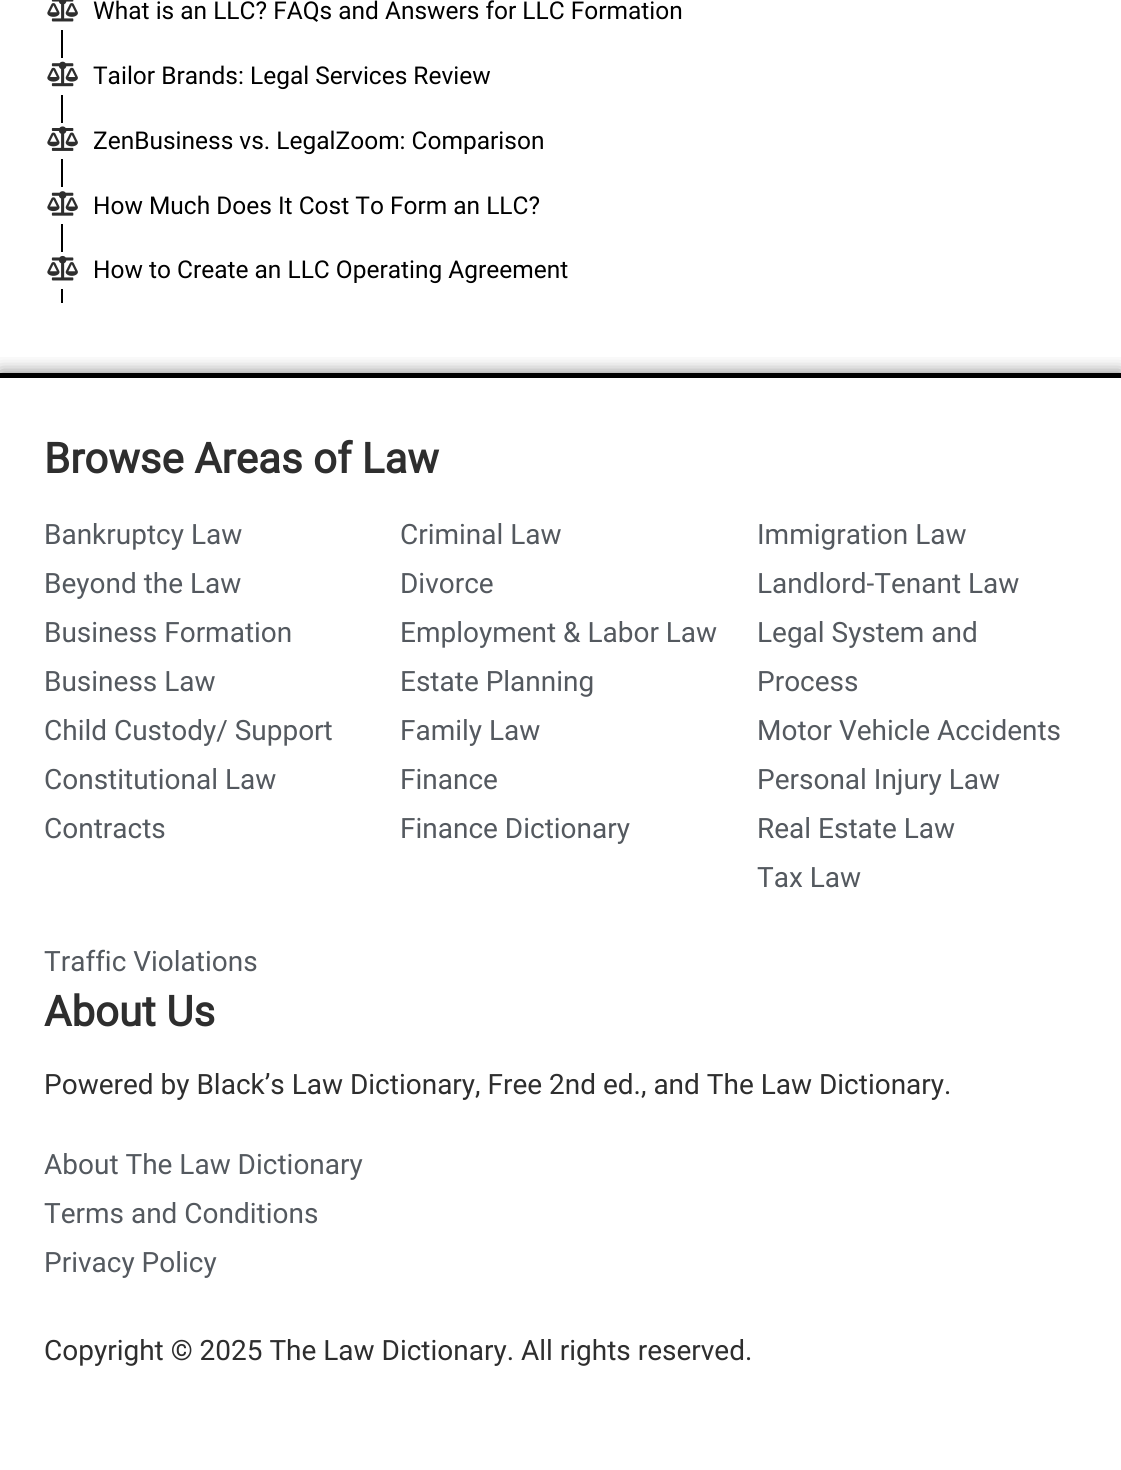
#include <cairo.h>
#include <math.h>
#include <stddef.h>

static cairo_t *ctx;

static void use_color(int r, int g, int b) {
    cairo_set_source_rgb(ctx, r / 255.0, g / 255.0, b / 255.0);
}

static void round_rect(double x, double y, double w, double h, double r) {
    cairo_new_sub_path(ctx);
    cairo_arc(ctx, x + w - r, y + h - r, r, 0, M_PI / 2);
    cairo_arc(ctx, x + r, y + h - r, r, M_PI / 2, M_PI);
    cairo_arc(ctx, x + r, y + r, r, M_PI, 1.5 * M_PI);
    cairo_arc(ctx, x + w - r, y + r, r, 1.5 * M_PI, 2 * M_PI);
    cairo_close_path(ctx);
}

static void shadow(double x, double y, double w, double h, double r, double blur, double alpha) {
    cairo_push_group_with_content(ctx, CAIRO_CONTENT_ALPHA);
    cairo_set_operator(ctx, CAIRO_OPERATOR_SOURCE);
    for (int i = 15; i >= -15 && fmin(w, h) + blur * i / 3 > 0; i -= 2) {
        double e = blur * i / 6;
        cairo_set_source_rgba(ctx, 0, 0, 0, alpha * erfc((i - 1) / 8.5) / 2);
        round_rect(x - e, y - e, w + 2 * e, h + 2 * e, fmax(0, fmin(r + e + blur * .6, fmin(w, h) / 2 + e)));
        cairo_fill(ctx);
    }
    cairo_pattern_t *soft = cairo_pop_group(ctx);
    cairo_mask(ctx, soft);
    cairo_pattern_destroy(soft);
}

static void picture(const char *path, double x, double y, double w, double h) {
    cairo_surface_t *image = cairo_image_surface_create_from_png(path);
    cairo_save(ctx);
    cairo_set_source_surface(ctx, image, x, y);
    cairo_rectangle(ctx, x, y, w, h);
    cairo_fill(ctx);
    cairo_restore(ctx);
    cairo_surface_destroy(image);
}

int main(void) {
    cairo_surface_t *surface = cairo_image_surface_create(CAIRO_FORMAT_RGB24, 1121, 1470);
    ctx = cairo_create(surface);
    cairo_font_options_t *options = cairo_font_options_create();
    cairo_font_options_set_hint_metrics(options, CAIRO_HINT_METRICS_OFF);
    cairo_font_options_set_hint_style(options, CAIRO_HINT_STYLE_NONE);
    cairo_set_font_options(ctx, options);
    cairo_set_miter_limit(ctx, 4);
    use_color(255, 255, 255);
    cairo_paint(ctx);
    picture("img1.png", 47, 0, 31, 22);
    cairo_select_font_face(ctx, "Roboto", CAIRO_FONT_SLANT_NORMAL, CAIRO_FONT_WEIGHT_NORMAL);
    cairo_set_font_size(ctx, 24.5);
    use_color(0, 0, 0);
    cairo_move_to(ctx, 93, 19);
    cairo_show_text(ctx, "What is an LLC? FAQs and Answers for LLC Formation");
    cairo_rectangle(ctx, 61, 30, 2, 273);
    cairo_fill(ctx);
    use_color(255, 255, 255);
    cairo_rectangle(ctx, 61, 58, 2, 37);
    cairo_fill(ctx);
    picture("img2.png", 47, 61, 31, 26);
    use_color(0, 0, 0);
    cairo_move_to(ctx, 93, 84);
    cairo_show_text(ctx, "Tailor Brands: Legal Services Review");
    use_color(255, 255, 255);
    cairo_rectangle(ctx, 61, 123, 2, 36);
    cairo_fill(ctx);
    picture("img3.png", 47, 126, 31, 25);
    use_color(0, 0, 0);
    cairo_move_to(ctx, 93, 149);
    cairo_show_text(ctx, "ZenBusiness vs. LegalZoom: Comparison");
    use_color(255, 255, 255);
    cairo_rectangle(ctx, 61, 187, 2, 37);
    cairo_fill(ctx);
    picture("img4.png", 47, 191, 31, 25);
    use_color(0, 0, 0);
    cairo_move_to(ctx, 93, 214);
    cairo_show_text(ctx, "How Much Does It Cost To Form an LLC?");
    use_color(255, 255, 255);
    cairo_rectangle(ctx, 61, 252, 2, 37);
    cairo_fill(ctx);
    picture("img5.png", 47, 255, 31, 26);
    use_color(0, 0, 0);
    cairo_move_to(ctx, 93, 278);
    cairo_show_text(ctx, "How to Create an LLC Operating Agreement");
    cairo_save(ctx);
    cairo_rectangle(ctx, 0, 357, 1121, 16);
    cairo_clip(ctx);
    use_color(0, 0, 0);
    shadow(0, 373, 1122, 1097, 0, 9, 0.5);
    cairo_restore(ctx);
    cairo_rectangle(ctx, 0, 373, 1121, 5);
    cairo_fill(ctx);
    cairo_select_font_face(ctx, "Roboto", CAIRO_FONT_SLANT_NORMAL, CAIRO_FONT_WEIGHT_BOLD);
    cairo_set_font_size(ctx, 42);
    use_color(46, 46, 46);
    cairo_move_to(ctx, 44, 473);
    cairo_show_text(ctx, "Browse Areas of Law");
    cairo_select_font_face(ctx, "Roboto", CAIRO_FONT_SLANT_NORMAL, CAIRO_FONT_WEIGHT_NORMAL);
    cairo_set_font_size(ctx, 28);
    use_color(84, 89, 95);
    cairo_move_to(ctx, 44, 544);
    cairo_show_text(ctx, "Bankruptcy Law");
    cairo_move_to(ctx, 44, 593);
    cairo_show_text(ctx, "Beyond the Law");
    cairo_move_to(ctx, 44, 642);
    cairo_show_text(ctx, "Business Formation");
    cairo_move_to(ctx, 44, 691);
    cairo_show_text(ctx, "Business Law");
    cairo_move_to(ctx, 44, 740);
    cairo_show_text(ctx, "Child Custody/ Support");
    cairo_move_to(ctx, 44, 789);
    cairo_show_text(ctx, "Constitutional Law");
    cairo_move_to(ctx, 44, 838);
    cairo_show_text(ctx, "Contracts");
    cairo_move_to(ctx, 400, 544);
    cairo_show_text(ctx, "Criminal Law");
    cairo_move_to(ctx, 400, 593);
    cairo_show_text(ctx, "Divorce");
    cairo_move_to(ctx, 400, 642);
    cairo_show_text(ctx, "Employment & Labor Law");
    cairo_move_to(ctx, 400, 691);
    cairo_show_text(ctx, "Estate Planning");
    cairo_move_to(ctx, 400, 740);
    cairo_show_text(ctx, "Family Law");
    cairo_move_to(ctx, 400, 789);
    cairo_show_text(ctx, "Finance");
    cairo_move_to(ctx, 400, 838);
    cairo_show_text(ctx, "Finance Dictionary");
    cairo_move_to(ctx, 757, 544);
    cairo_show_text(ctx, "Immigration Law");
    cairo_move_to(ctx, 757, 593);
    cairo_show_text(ctx, "Landlord-Tenant Law");
    cairo_move_to(ctx, 757, 642);
    cairo_show_text(ctx, "Legal System and");
    cairo_move_to(ctx, 757, 691);
    cairo_show_text(ctx, "Process");
    cairo_move_to(ctx, 757, 740);
    cairo_show_text(ctx, "Motor Vehicle Accidents");
    cairo_move_to(ctx, 757, 789);
    cairo_show_text(ctx, "Personal Injury Law");
    cairo_move_to(ctx, 757, 838);
    cairo_show_text(ctx, "Real Estate Law");
    cairo_move_to(ctx, 757, 887);
    cairo_show_text(ctx, "Tax Law");
    cairo_move_to(ctx, 44, 971);
    cairo_show_text(ctx, "Traffic Violations");
    cairo_select_font_face(ctx, "Roboto", CAIRO_FONT_SLANT_NORMAL, CAIRO_FONT_WEIGHT_BOLD);
    cairo_set_font_size(ctx, 42);
    use_color(46, 46, 46);
    cairo_move_to(ctx, 44, 1026);
    cairo_show_text(ctx, "About Us");
    cairo_select_font_face(ctx, "Roboto", CAIRO_FONT_SLANT_NORMAL, CAIRO_FONT_WEIGHT_NORMAL);
    cairo_set_font_size(ctx, 28);
    cairo_move_to(ctx, 44, 1094);
    cairo_show_text(ctx, "Powered by Black’s Law Dictionary, Free 2nd ed., and The Law Dictionary.");
    use_color(84, 89, 95);
    cairo_move_to(ctx, 44, 1174);
    cairo_show_text(ctx, "About The Law Dictionary");
    cairo_move_to(ctx, 44, 1223);
    cairo_show_text(ctx, "Terms and Conditions");
    cairo_move_to(ctx, 44, 1272);
    cairo_show_text(ctx, "Privacy Policy");
    use_color(46, 46, 46);
    cairo_move_to(ctx, 44, 1360);
    cairo_show_text(ctx, "Copyright © 2025 The Law Dictionary. All rights reserved.");
    cairo_surface_write_to_png(surface, "result.png");
    cairo_font_options_destroy(options);
    cairo_destroy(ctx);
    cairo_surface_destroy(surface);
    return 0;
}
